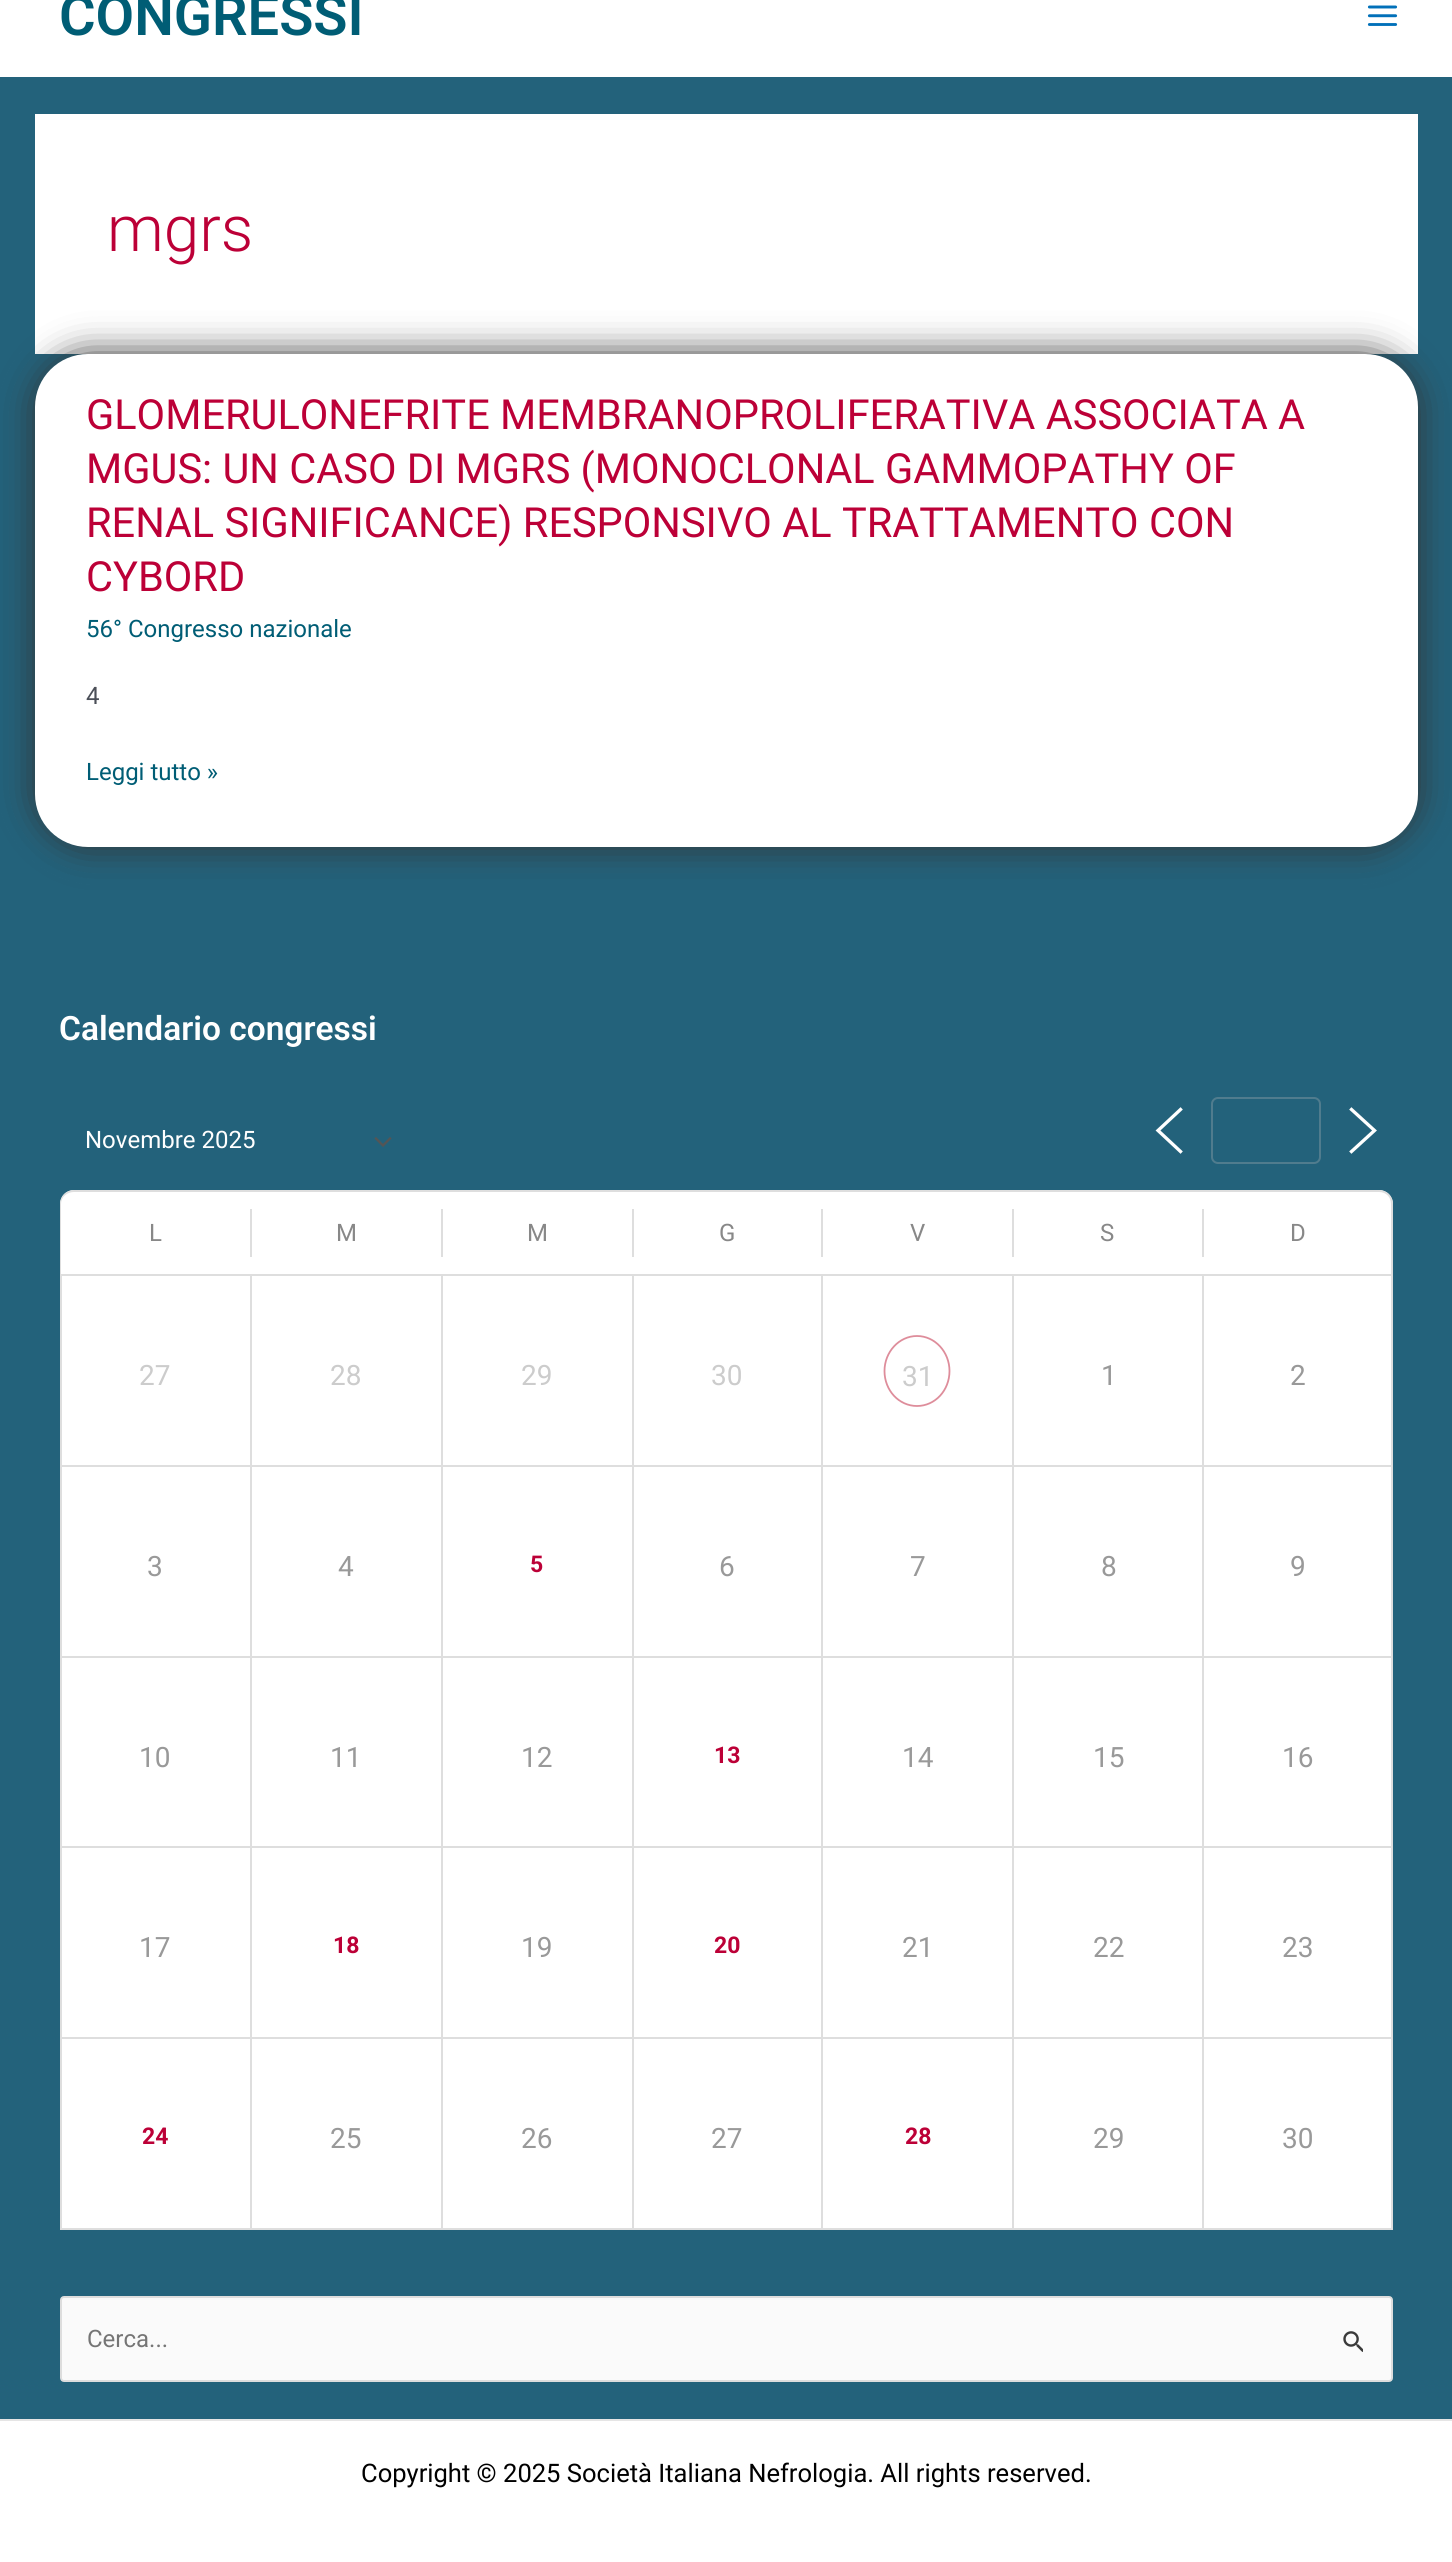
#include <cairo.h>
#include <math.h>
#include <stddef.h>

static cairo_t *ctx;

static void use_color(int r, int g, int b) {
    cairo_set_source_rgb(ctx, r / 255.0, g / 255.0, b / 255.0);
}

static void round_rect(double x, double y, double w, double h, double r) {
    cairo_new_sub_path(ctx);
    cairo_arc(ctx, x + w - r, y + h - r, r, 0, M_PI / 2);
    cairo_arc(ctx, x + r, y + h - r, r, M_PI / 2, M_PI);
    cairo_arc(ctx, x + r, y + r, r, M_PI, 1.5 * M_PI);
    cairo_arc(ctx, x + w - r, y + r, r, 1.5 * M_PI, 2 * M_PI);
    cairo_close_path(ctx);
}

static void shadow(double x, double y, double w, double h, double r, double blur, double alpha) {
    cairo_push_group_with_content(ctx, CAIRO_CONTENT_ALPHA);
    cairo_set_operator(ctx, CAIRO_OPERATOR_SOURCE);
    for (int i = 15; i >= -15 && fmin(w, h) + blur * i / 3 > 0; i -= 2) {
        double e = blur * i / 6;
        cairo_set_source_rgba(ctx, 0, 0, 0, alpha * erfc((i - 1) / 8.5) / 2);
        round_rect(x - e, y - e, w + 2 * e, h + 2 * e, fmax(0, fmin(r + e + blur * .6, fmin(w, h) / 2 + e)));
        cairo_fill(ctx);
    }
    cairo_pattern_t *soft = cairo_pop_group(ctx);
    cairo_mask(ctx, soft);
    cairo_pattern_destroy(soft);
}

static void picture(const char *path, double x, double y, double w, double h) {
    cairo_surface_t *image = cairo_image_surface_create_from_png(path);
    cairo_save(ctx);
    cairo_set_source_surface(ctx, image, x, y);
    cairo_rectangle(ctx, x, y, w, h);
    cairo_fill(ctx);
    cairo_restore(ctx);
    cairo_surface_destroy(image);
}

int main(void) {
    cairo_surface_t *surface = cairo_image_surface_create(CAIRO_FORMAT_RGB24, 1452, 2562);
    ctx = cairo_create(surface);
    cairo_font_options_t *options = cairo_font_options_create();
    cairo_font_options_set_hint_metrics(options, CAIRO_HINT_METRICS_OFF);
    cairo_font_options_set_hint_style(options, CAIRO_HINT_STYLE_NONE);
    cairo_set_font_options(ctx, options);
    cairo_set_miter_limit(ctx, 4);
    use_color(35, 98, 123);
    cairo_paint(ctx);
    use_color(255, 255, 255);
    cairo_rectangle(ctx, 0, 0, 1452, 77);
    cairo_fill(ctx);
    cairo_select_font_face(ctx, "Roboto SemiBold", CAIRO_FONT_SLANT_NORMAL, CAIRO_FONT_WEIGHT_NORMAL);
    cairo_set_font_size(ctx, 56);
    use_color(0, 93, 117);
    cairo_move_to(ctx, 59, 35);
    cairo_show_text(ctx, "CONGRESSI");
    picture("img1.png", 1367, 5, 31, 21);
    use_color(255, 255, 255);
    cairo_rectangle(ctx, 35, 114, 1383, 240);
    cairo_fill(ctx);
    cairo_select_font_face(ctx, "Roboto Light", CAIRO_FONT_SLANT_NORMAL, CAIRO_FONT_WEIGHT_NORMAL);
    cairo_set_font_size(ctx, 64);
    use_color(188, 0, 55);
    cairo_move_to(ctx, 107, 251);
    cairo_show_text(ctx, "mgrs");
    use_color(51, 51, 51);
    shadow(35, 354, 1383, 493, 53, 17.5, 1);
    use_color(255, 255, 255);
    round_rect(35, 354, 1383, 493, 53);
    cairo_fill(ctx);
    cairo_select_font_face(ctx, "Roboto", CAIRO_FONT_SLANT_NORMAL, CAIRO_FONT_WEIGHT_NORMAL);
    cairo_set_font_size(ctx, 41.5);
    use_color(188, 0, 55);
    cairo_move_to(ctx, 86, 429);
    cairo_show_text(ctx, "GLOMERULONEFRITE MEMBRANOPROLIFERATIVA ASSOCIATA A");
    cairo_move_to(ctx, 86, 483);
    cairo_show_text(ctx, "MGUS: UN CASO DI MGRS (MONOCLONAL GAMMOPATHY OF");
    cairo_move_to(ctx, 86, 537);
    cairo_show_text(ctx, "RENAL SIGNIFICANCE) RESPONSIVO AL TRATTAMENTO CON");
    cairo_move_to(ctx, 86, 591);
    cairo_show_text(ctx, "CYBORD");
    cairo_set_font_size(ctx, 24);
    use_color(0, 93, 117);
    cairo_move_to(ctx, 86, 637);
    cairo_show_text(ctx, "56° Congresso nazionale");
    use_color(75, 79, 88);
    cairo_move_to(ctx, 86, 704);
    cairo_show_text(ctx, "4");
    use_color(0, 93, 117);
    cairo_move_to(ctx, 86, 780);
    cairo_show_text(ctx, "Leggi tutto »");
    cairo_select_font_face(ctx, "Roboto SemiBold", CAIRO_FONT_SLANT_NORMAL, CAIRO_FONT_WEIGHT_NORMAL);
    cairo_set_font_size(ctx, 33.5);
    use_color(255, 255, 255);
    cairo_move_to(ctx, 59, 1040);
    cairo_show_text(ctx, "Calendario congressi");
    cairo_new_path(ctx);
    cairo_move_to(ctx, 376, 1138.5);
    cairo_line_to(ctx, 383, 1145.5);
    cairo_line_to(ctx, 390, 1138.5);
    use_color(85, 85, 85);
    cairo_set_line_width(ctx, 2.3);
    cairo_set_line_cap(ctx, CAIRO_LINE_CAP_SQUARE);
    cairo_stroke(ctx);
    cairo_select_font_face(ctx, "Roboto", CAIRO_FONT_SLANT_NORMAL, CAIRO_FONT_WEIGHT_NORMAL);
    cairo_set_font_size(ctx, 24);
    use_color(255, 255, 255);
    cairo_move_to(ctx, 85, 1148);
    cairo_show_text(ctx, "Novembre 2025");
    cairo_new_path(ctx);
    cairo_move_to(ctx, 1180.5, 1151.5);
    cairo_line_to(ctx, 1158, 1130.5);
    cairo_line_to(ctx, 1180.5, 1109.5);
    cairo_set_line_width(ctx, 3.3);
    cairo_stroke(ctx);
    round_rect(1212, 1098, 108, 65, 6);
    use_color(80, 124, 142);
    cairo_set_line_width(ctx, 2);
    cairo_set_line_cap(ctx, CAIRO_LINE_CAP_BUTT);
    cairo_stroke(ctx);
    cairo_new_path(ctx);
    cairo_move_to(ctx, 1351.5, 1151.5);
    cairo_line_to(ctx, 1374.5, 1130.5);
    cairo_line_to(ctx, 1351.5, 1109.5);
    use_color(255, 255, 255);
    cairo_set_line_width(ctx, 3.3);
    cairo_set_line_cap(ctx, CAIRO_LINE_CAP_SQUARE);
    cairo_stroke(ctx);
    cairo_new_path(ctx);
    cairo_move_to(ctx, 74, 1190);
    cairo_line_to(ctx, 1379, 1190);
    cairo_curve_to(ctx, 1386.5, 1190, 1393, 1196.5, 1393, 1204);
    cairo_line_to(ctx, 1393, 1274);
    cairo_line_to(ctx, 60, 1274);
    cairo_line_to(ctx, 60, 1204);
    cairo_curve_to(ctx, 60, 1196.5, 66.5, 1190, 74, 1190);
    cairo_close_path(ctx);
    cairo_fill(ctx);
    use_color(222, 222, 222);
    cairo_set_fill_rule(ctx, CAIRO_FILL_RULE_EVEN_ODD);
    cairo_new_path(ctx);
    cairo_move_to(ctx, 74, 1190);
    cairo_line_to(ctx, 1379, 1190);
    cairo_curve_to(ctx, 1387, 1190, 1393, 1196, 1393, 1204);
    cairo_line_to(ctx, 1393, 1274);
    cairo_line_to(ctx, 60, 1274);
    cairo_line_to(ctx, 60, 1204);
    cairo_curve_to(ctx, 60, 1196, 66, 1190, 74, 1190);
    cairo_close_path(ctx);
    cairo_move_to(ctx, 74, 1192);
    cairo_line_to(ctx, 1379, 1192);
    cairo_curve_to(ctx, 1386, 1192, 1391, 1197, 1391, 1204);
    cairo_line_to(ctx, 1391, 1274);
    cairo_line_to(ctx, 61, 1274);
    cairo_line_to(ctx, 61, 1204);
    cairo_curve_to(ctx, 61, 1197, 67, 1192, 74, 1192);
    cairo_close_path(ctx);
    cairo_fill(ctx);
    use_color(136, 136, 136);
    cairo_move_to(ctx, 149, 1241);
    cairo_show_text(ctx, "L");
    use_color(222, 222, 222);
    cairo_rectangle(ctx, 250, 1209, 2, 48);
    cairo_fill(ctx);
    use_color(136, 136, 136);
    cairo_move_to(ctx, 336, 1241);
    cairo_show_text(ctx, "M");
    use_color(222, 222, 222);
    cairo_rectangle(ctx, 441, 1209, 2, 48);
    cairo_fill(ctx);
    use_color(136, 136, 136);
    cairo_move_to(ctx, 527, 1241);
    cairo_show_text(ctx, "M");
    use_color(222, 222, 222);
    cairo_rectangle(ctx, 632, 1209, 2, 48);
    cairo_fill(ctx);
    use_color(136, 136, 136);
    cairo_move_to(ctx, 719, 1241);
    cairo_show_text(ctx, "G");
    use_color(222, 222, 222);
    cairo_rectangle(ctx, 821, 1209, 2, 48);
    cairo_fill(ctx);
    use_color(136, 136, 136);
    cairo_move_to(ctx, 910, 1241);
    cairo_show_text(ctx, "V");
    use_color(222, 222, 222);
    cairo_rectangle(ctx, 1012, 1209, 2, 48);
    cairo_fill(ctx);
    use_color(136, 136, 136);
    cairo_move_to(ctx, 1100, 1241);
    cairo_show_text(ctx, "S");
    use_color(222, 222, 222);
    cairo_rectangle(ctx, 1202, 1209, 2, 48);
    cairo_fill(ctx);
    use_color(136, 136, 136);
    cairo_move_to(ctx, 1290, 1241);
    cairo_show_text(ctx, "D");
    use_color(255, 255, 255);
    cairo_rectangle(ctx, 62, 1276, 1329, 952);
    cairo_fill(ctx);
    use_color(222, 222, 222);
    cairo_rectangle(ctx, 60, 2228, 1333, 2);
    cairo_fill(ctx);
    cairo_rectangle(ctx, 60, 1274, 1333, 2);
    cairo_fill(ctx);
    cairo_rectangle(ctx, 60, 1274, 2, 191);
    cairo_fill(ctx);
    cairo_set_font_size(ctx, 28);
    use_color(204, 204, 204);
    cairo_move_to(ctx, 139, 1385);
    cairo_show_text(ctx, "27");
    use_color(222, 222, 222);
    cairo_rectangle(ctx, 250, 1274, 2, 191);
    cairo_fill(ctx);
    use_color(204, 204, 204);
    cairo_move_to(ctx, 330, 1385);
    cairo_show_text(ctx, "28");
    use_color(222, 222, 222);
    cairo_rectangle(ctx, 441, 1274, 2, 191);
    cairo_fill(ctx);
    use_color(204, 204, 204);
    cairo_move_to(ctx, 521, 1385);
    cairo_show_text(ctx, "29");
    use_color(222, 222, 222);
    cairo_rectangle(ctx, 632, 1274, 2, 191);
    cairo_fill(ctx);
    use_color(204, 204, 204);
    cairo_move_to(ctx, 711, 1385);
    cairo_show_text(ctx, "30");
    use_color(222, 222, 222);
    cairo_rectangle(ctx, 821, 1274, 2, 191);
    cairo_fill(ctx);
    cairo_new_path(ctx);
    cairo_move_to(ctx, 917, 1336);
    cairo_curve_to(ctx, 935, 1336, 949.5, 1352, 949.5, 1371);
    cairo_curve_to(ctx, 949.5, 1390.5, 935, 1406, 917, 1406);
    cairo_curve_to(ctx, 899, 1406, 884.5, 1390.5, 884.5, 1371);
    cairo_curve_to(ctx, 884.5, 1352, 899, 1336, 917, 1336);
    cairo_close_path(ctx);
    use_color(222, 141, 155);
    cairo_set_line_width(ctx, 1.8);
    cairo_set_line_cap(ctx, CAIRO_LINE_CAP_BUTT);
    cairo_stroke(ctx);
    use_color(204, 204, 204);
    cairo_move_to(ctx, 902, 1386);
    cairo_show_text(ctx, "31");
    use_color(222, 222, 222);
    cairo_rectangle(ctx, 1012, 1274, 2, 191);
    cairo_fill(ctx);
    use_color(153, 153, 153);
    cairo_move_to(ctx, 1101, 1385);
    cairo_show_text(ctx, "1");
    use_color(222, 222, 222);
    cairo_rectangle(ctx, 1391, 1274, 2, 191);
    cairo_fill(ctx);
    cairo_rectangle(ctx, 1202, 1274, 2, 191);
    cairo_fill(ctx);
    use_color(153, 153, 153);
    cairo_move_to(ctx, 1290, 1385);
    cairo_show_text(ctx, "2");
    use_color(222, 222, 222);
    cairo_rectangle(ctx, 60, 1465, 1333, 2);
    cairo_fill(ctx);
    cairo_rectangle(ctx, 60, 1465, 2, 191);
    cairo_fill(ctx);
    use_color(153, 153, 153);
    cairo_move_to(ctx, 147, 1576);
    cairo_show_text(ctx, "3");
    use_color(222, 222, 222);
    cairo_rectangle(ctx, 250, 1465, 2, 191);
    cairo_fill(ctx);
    use_color(153, 153, 153);
    cairo_move_to(ctx, 338, 1576);
    cairo_show_text(ctx, "4");
    use_color(222, 222, 222);
    cairo_rectangle(ctx, 441, 1465, 2, 191);
    cairo_fill(ctx);
    cairo_select_font_face(ctx, "Roboto", CAIRO_FONT_SLANT_NORMAL, CAIRO_FONT_WEIGHT_BOLD);
    cairo_set_font_size(ctx, 23);
    use_color(188, 0, 55);
    cairo_move_to(ctx, 530, 1572);
    cairo_show_text(ctx, "5");
    use_color(222, 222, 222);
    cairo_rectangle(ctx, 632, 1465, 2, 191);
    cairo_fill(ctx);
    cairo_select_font_face(ctx, "Roboto", CAIRO_FONT_SLANT_NORMAL, CAIRO_FONT_WEIGHT_NORMAL);
    cairo_set_font_size(ctx, 28);
    use_color(153, 153, 153);
    cairo_move_to(ctx, 719, 1576);
    cairo_show_text(ctx, "6");
    use_color(222, 222, 222);
    cairo_rectangle(ctx, 821, 1465, 2, 191);
    cairo_fill(ctx);
    use_color(153, 153, 153);
    cairo_move_to(ctx, 910, 1576);
    cairo_show_text(ctx, "7");
    use_color(222, 222, 222);
    cairo_rectangle(ctx, 1012, 1465, 2, 191);
    cairo_fill(ctx);
    use_color(153, 153, 153);
    cairo_move_to(ctx, 1101, 1576);
    cairo_show_text(ctx, "8");
    use_color(222, 222, 222);
    cairo_rectangle(ctx, 1391, 1465, 2, 191);
    cairo_fill(ctx);
    cairo_rectangle(ctx, 1202, 1465, 2, 191);
    cairo_fill(ctx);
    use_color(153, 153, 153);
    cairo_move_to(ctx, 1290, 1576);
    cairo_show_text(ctx, "9");
    use_color(222, 222, 222);
    cairo_rectangle(ctx, 60, 1656, 1333, 2);
    cairo_fill(ctx);
    cairo_rectangle(ctx, 60, 1656, 2, 190);
    cairo_fill(ctx);
    use_color(153, 153, 153);
    cairo_move_to(ctx, 139, 1767);
    cairo_show_text(ctx, "10");
    use_color(222, 222, 222);
    cairo_rectangle(ctx, 250, 1656, 2, 190);
    cairo_fill(ctx);
    use_color(153, 153, 153);
    cairo_move_to(ctx, 330, 1767);
    cairo_show_text(ctx, "11");
    use_color(222, 222, 222);
    cairo_rectangle(ctx, 441, 1656, 2, 190);
    cairo_fill(ctx);
    use_color(153, 153, 153);
    cairo_move_to(ctx, 521, 1767);
    cairo_show_text(ctx, "12");
    use_color(222, 222, 222);
    cairo_rectangle(ctx, 632, 1656, 2, 190);
    cairo_fill(ctx);
    cairo_select_font_face(ctx, "Roboto", CAIRO_FONT_SLANT_NORMAL, CAIRO_FONT_WEIGHT_BOLD);
    cairo_set_font_size(ctx, 23);
    use_color(188, 0, 55);
    cairo_move_to(ctx, 714, 1763);
    cairo_show_text(ctx, "13");
    use_color(222, 222, 222);
    cairo_rectangle(ctx, 821, 1656, 2, 190);
    cairo_fill(ctx);
    cairo_select_font_face(ctx, "Roboto", CAIRO_FONT_SLANT_NORMAL, CAIRO_FONT_WEIGHT_NORMAL);
    cairo_set_font_size(ctx, 28);
    use_color(153, 153, 153);
    cairo_move_to(ctx, 902, 1767);
    cairo_show_text(ctx, "14");
    use_color(222, 222, 222);
    cairo_rectangle(ctx, 1012, 1656, 2, 190);
    cairo_fill(ctx);
    use_color(153, 153, 153);
    cairo_move_to(ctx, 1093, 1767);
    cairo_show_text(ctx, "15");
    use_color(222, 222, 222);
    cairo_rectangle(ctx, 1391, 1656, 2, 190);
    cairo_fill(ctx);
    cairo_rectangle(ctx, 1202, 1656, 2, 190);
    cairo_fill(ctx);
    use_color(153, 153, 153);
    cairo_move_to(ctx, 1282, 1767);
    cairo_show_text(ctx, "16");
    use_color(222, 222, 222);
    cairo_rectangle(ctx, 60, 1846, 1333, 2);
    cairo_fill(ctx);
    cairo_rectangle(ctx, 60, 1846, 2, 191);
    cairo_fill(ctx);
    use_color(153, 153, 153);
    cairo_move_to(ctx, 139, 1957);
    cairo_show_text(ctx, "17");
    use_color(222, 222, 222);
    cairo_rectangle(ctx, 250, 1846, 2, 191);
    cairo_fill(ctx);
    cairo_select_font_face(ctx, "Roboto", CAIRO_FONT_SLANT_NORMAL, CAIRO_FONT_WEIGHT_BOLD);
    cairo_set_font_size(ctx, 23);
    use_color(188, 0, 55);
    cairo_move_to(ctx, 333, 1953);
    cairo_show_text(ctx, "18");
    use_color(222, 222, 222);
    cairo_rectangle(ctx, 441, 1846, 2, 191);
    cairo_fill(ctx);
    cairo_select_font_face(ctx, "Roboto", CAIRO_FONT_SLANT_NORMAL, CAIRO_FONT_WEIGHT_NORMAL);
    cairo_set_font_size(ctx, 28);
    use_color(153, 153, 153);
    cairo_move_to(ctx, 521, 1957);
    cairo_show_text(ctx, "19");
    use_color(222, 222, 222);
    cairo_rectangle(ctx, 632, 1846, 2, 191);
    cairo_fill(ctx);
    cairo_select_font_face(ctx, "Roboto", CAIRO_FONT_SLANT_NORMAL, CAIRO_FONT_WEIGHT_BOLD);
    cairo_set_font_size(ctx, 23);
    use_color(188, 0, 55);
    cairo_move_to(ctx, 714, 1953);
    cairo_show_text(ctx, "20");
    use_color(222, 222, 222);
    cairo_rectangle(ctx, 821, 1846, 2, 191);
    cairo_fill(ctx);
    cairo_select_font_face(ctx, "Roboto", CAIRO_FONT_SLANT_NORMAL, CAIRO_FONT_WEIGHT_NORMAL);
    cairo_set_font_size(ctx, 28);
    use_color(153, 153, 153);
    cairo_move_to(ctx, 902, 1957);
    cairo_show_text(ctx, "21");
    use_color(222, 222, 222);
    cairo_rectangle(ctx, 1012, 1846, 2, 191);
    cairo_fill(ctx);
    use_color(153, 153, 153);
    cairo_move_to(ctx, 1093, 1957);
    cairo_show_text(ctx, "22");
    use_color(222, 222, 222);
    cairo_rectangle(ctx, 1391, 1846, 2, 191);
    cairo_fill(ctx);
    cairo_rectangle(ctx, 1202, 1846, 2, 191);
    cairo_fill(ctx);
    use_color(153, 153, 153);
    cairo_move_to(ctx, 1282, 1957);
    cairo_show_text(ctx, "23");
    use_color(222, 222, 222);
    cairo_rectangle(ctx, 60, 2037, 1333, 2);
    cairo_fill(ctx);
    cairo_rectangle(ctx, 60, 2037, 2, 191);
    cairo_fill(ctx);
    cairo_select_font_face(ctx, "Roboto", CAIRO_FONT_SLANT_NORMAL, CAIRO_FONT_WEIGHT_BOLD);
    cairo_set_font_size(ctx, 23);
    use_color(188, 0, 55);
    cairo_move_to(ctx, 142, 2144);
    cairo_show_text(ctx, "24");
    use_color(222, 222, 222);
    cairo_rectangle(ctx, 250, 2037, 2, 191);
    cairo_fill(ctx);
    cairo_select_font_face(ctx, "Roboto", CAIRO_FONT_SLANT_NORMAL, CAIRO_FONT_WEIGHT_NORMAL);
    cairo_set_font_size(ctx, 28);
    use_color(153, 153, 153);
    cairo_move_to(ctx, 330, 2148);
    cairo_show_text(ctx, "25");
    use_color(222, 222, 222);
    cairo_rectangle(ctx, 441, 2037, 2, 191);
    cairo_fill(ctx);
    use_color(153, 153, 153);
    cairo_move_to(ctx, 521, 2148);
    cairo_show_text(ctx, "26");
    use_color(222, 222, 222);
    cairo_rectangle(ctx, 632, 2037, 2, 191);
    cairo_fill(ctx);
    use_color(153, 153, 153);
    cairo_move_to(ctx, 711, 2148);
    cairo_show_text(ctx, "27");
    use_color(222, 222, 222);
    cairo_rectangle(ctx, 821, 2037, 2, 191);
    cairo_fill(ctx);
    cairo_select_font_face(ctx, "Roboto", CAIRO_FONT_SLANT_NORMAL, CAIRO_FONT_WEIGHT_BOLD);
    cairo_set_font_size(ctx, 23);
    use_color(188, 0, 55);
    cairo_move_to(ctx, 905, 2144);
    cairo_show_text(ctx, "28");
    use_color(222, 222, 222);
    cairo_rectangle(ctx, 1012, 2037, 2, 191);
    cairo_fill(ctx);
    cairo_select_font_face(ctx, "Roboto", CAIRO_FONT_SLANT_NORMAL, CAIRO_FONT_WEIGHT_NORMAL);
    cairo_set_font_size(ctx, 28);
    use_color(153, 153, 153);
    cairo_move_to(ctx, 1093, 2148);
    cairo_show_text(ctx, "29");
    use_color(222, 222, 222);
    cairo_rectangle(ctx, 1391, 2037, 2, 191);
    cairo_fill(ctx);
    cairo_rectangle(ctx, 1202, 2037, 2, 191);
    cairo_fill(ctx);
    use_color(153, 153, 153);
    cairo_move_to(ctx, 1282, 2148);
    cairo_show_text(ctx, "30");
    use_color(250, 250, 250);
    round_rect(61, 2297, 1331, 84, 3);
    cairo_fill_preserve(ctx);
    use_color(221, 221, 221);
    cairo_set_line_width(ctx, 2);
    cairo_stroke(ctx);
    cairo_set_font_size(ctx, 24);
    use_color(117, 117, 117);
    cairo_move_to(ctx, 87, 2347);
    cairo_show_text(ctx, "Cerca...");
    picture("img2.png", 1343, 2331, 20, 21);
    use_color(255, 255, 255);
    cairo_rectangle(ctx, 0, 2421, 1452, 141);
    cairo_fill(ctx);
    use_color(229, 229, 229);
    cairo_rectangle(ctx, 0, 2419, 1452, 2);
    cairo_fill(ctx);
    cairo_set_font_size(ctx, 25.55);
    use_color(0, 0, 0);
    cairo_move_to(ctx, 361, 2482);
    cairo_show_text(ctx, "Copyright © 2025 Società Italiana Nefrologia. All rights reserved.");
    cairo_surface_write_to_png(surface, "result.png");
    cairo_font_options_destroy(options);
    cairo_destroy(ctx);
    cairo_surface_destroy(surface);
    return 0;
}
